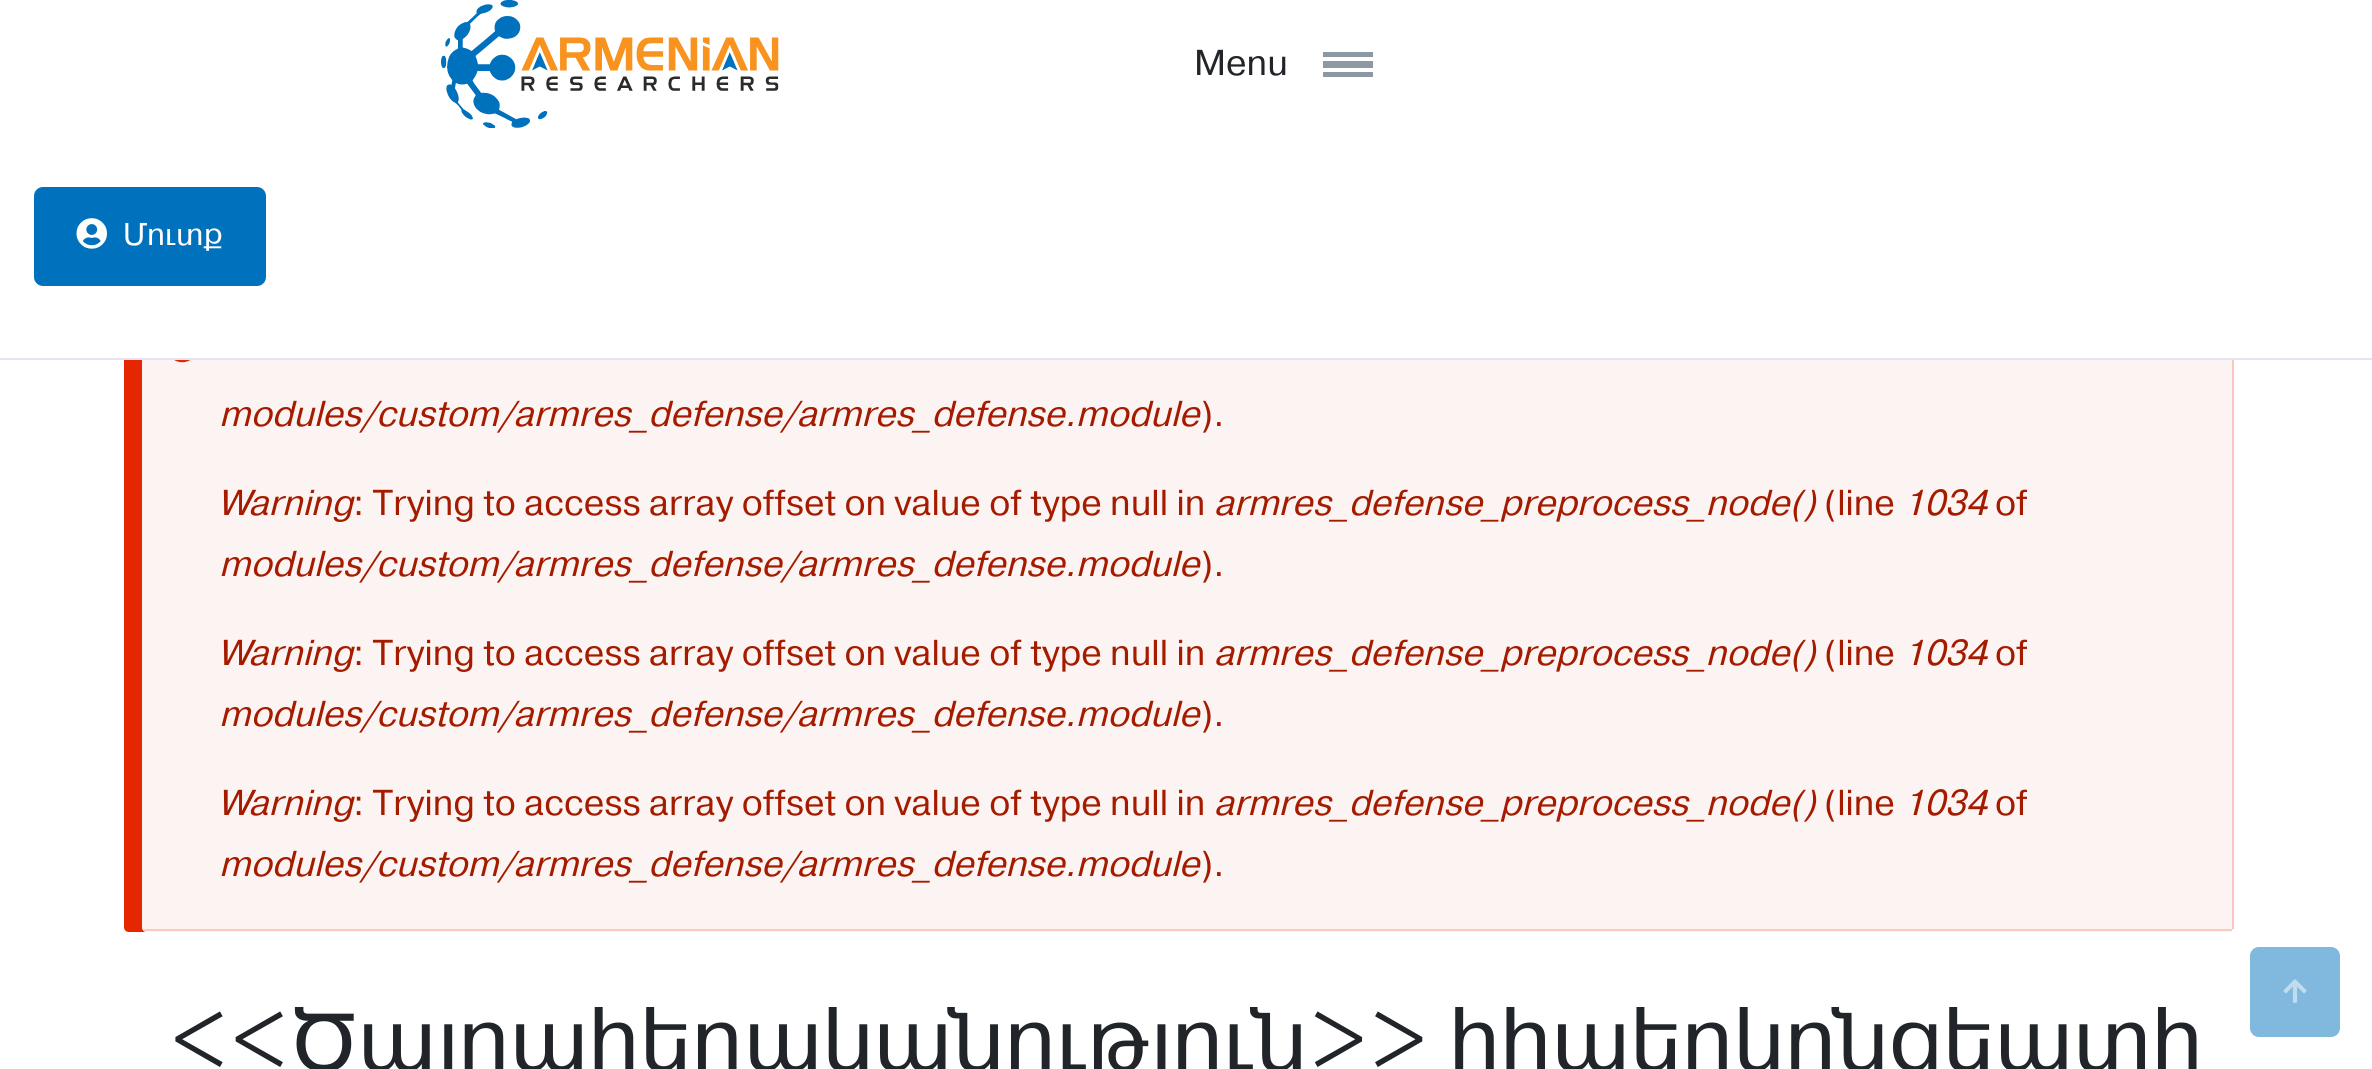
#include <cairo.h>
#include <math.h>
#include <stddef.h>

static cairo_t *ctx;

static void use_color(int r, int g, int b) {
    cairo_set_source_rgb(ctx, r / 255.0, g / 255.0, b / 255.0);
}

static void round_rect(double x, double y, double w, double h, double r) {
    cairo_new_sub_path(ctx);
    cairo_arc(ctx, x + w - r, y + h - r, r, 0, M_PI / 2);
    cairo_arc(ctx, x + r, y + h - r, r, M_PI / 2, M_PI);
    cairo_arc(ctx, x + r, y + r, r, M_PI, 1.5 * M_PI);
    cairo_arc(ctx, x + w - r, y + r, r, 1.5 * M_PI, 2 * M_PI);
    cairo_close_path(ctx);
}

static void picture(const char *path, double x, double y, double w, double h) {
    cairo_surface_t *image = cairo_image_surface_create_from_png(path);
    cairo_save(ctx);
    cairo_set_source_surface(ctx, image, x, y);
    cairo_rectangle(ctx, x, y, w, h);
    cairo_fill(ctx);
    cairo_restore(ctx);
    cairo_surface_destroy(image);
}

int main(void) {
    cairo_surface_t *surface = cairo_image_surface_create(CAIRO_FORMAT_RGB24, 2372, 1069);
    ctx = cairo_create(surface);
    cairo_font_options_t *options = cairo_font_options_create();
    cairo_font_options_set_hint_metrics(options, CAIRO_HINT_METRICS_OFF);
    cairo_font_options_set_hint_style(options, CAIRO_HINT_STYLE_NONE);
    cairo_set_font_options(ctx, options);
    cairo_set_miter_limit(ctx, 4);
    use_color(255, 255, 255);
    cairo_paint(ctx);
    use_color(230, 38, 0);
    cairo_new_path(ctx);
    cairo_move_to(ctx, 129, 288);
    cairo_curve_to(ctx, 126, 288, 124, 290, 124, 293);
    cairo_line_to(ctx, 124, 927);
    cairo_curve_to(ctx, 124, 930, 126, 932, 129, 932);
    cairo_line_to(ctx, 2211, 932);
    cairo_line_to(ctx, 2213, 932);
    cairo_line_to(ctx, 146, 932);
    cairo_curve_to(ctx, 144, 932, 142, 929, 142, 927);
    cairo_line_to(ctx, 142, 292);
    cairo_curve_to(ctx, 142, 290, 144, 288, 146, 288);
    cairo_close_path(ctx);
    cairo_fill(ctx);
    use_color(252, 244, 242);
    round_rect(142, 288, 2092, 644, 5);
    cairo_fill(ctx);
    use_color(255, 255, 255);
    cairo_rectangle(ctx, 124, 288, 2110, 70);
    cairo_fill(ctx);
    use_color(227, 230, 240);
    cairo_rectangle(ctx, 0, 358, 2372, 2);
    cairo_fill(ctx);
    picture("img1.png", 441, 0, 338, 128);
    cairo_select_font_face(ctx, "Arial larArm", CAIRO_FONT_SLANT_NORMAL, CAIRO_FONT_WEIGHT_NORMAL);
    cairo_set_font_size(ctx, 36);
    use_color(33, 37, 41);
    cairo_move_to(ctx, 1194, 75);
    cairo_show_text(ctx, "Menu");
    use_color(140, 152, 164);
    cairo_rectangle(ctx, 1323, 52, 50, 5);
    cairo_fill(ctx);
    cairo_rectangle(ctx, 1323, 61, 50, 7);
    cairo_fill(ctx);
    cairo_rectangle(ctx, 1323, 72, 50, 5);
    cairo_fill(ctx);
    use_color(0, 113, 188);
    round_rect(35, 188, 230, 97, 8);
    cairo_fill_preserve(ctx);
    cairo_stroke(ctx);
    picture("img2.png", 76, 218, 31, 31);
    cairo_set_font_size(ctx, 31.5);
    use_color(255, 255, 255);
    cairo_move_to(ctx, 123, 245);
    cairo_show_text(ctx, "Մուտք");
    picture("img3.png", 174, 360, 16, 3);
    use_color(249, 201, 191);
    cairo_rectangle(ctx, 2232, 360, 2, 569);
    cairo_fill(ctx);
    cairo_rectangle(ctx, 144, 929, 2088, 2);
    cairo_fill(ctx);
    cairo_select_font_face(ctx, "Arial larArm", CAIRO_FONT_SLANT_ITALIC, CAIRO_FONT_WEIGHT_NORMAL);
    cairo_set_font_size(ctx, 36);
    use_color(165, 27, 0);
    cairo_move_to(ctx, 219, 426);
    cairo_show_text(ctx, "modules/custom/armres_defense/armres_defense.module");
    cairo_select_font_face(ctx, "Arial larArm", CAIRO_FONT_SLANT_NORMAL, CAIRO_FONT_WEIGHT_NORMAL);
    cairo_move_to(ctx, 1200, 426);
    cairo_show_text(ctx, ").");
    cairo_select_font_face(ctx, "Arial larArm", CAIRO_FONT_SLANT_ITALIC, CAIRO_FONT_WEIGHT_NORMAL);
    cairo_move_to(ctx, 219, 515);
    cairo_show_text(ctx, "Warning");
    cairo_select_font_face(ctx, "Arial larArm", CAIRO_FONT_SLANT_NORMAL, CAIRO_FONT_WEIGHT_NORMAL);
    cairo_move_to(ctx, 353, 515);
    cairo_show_text(ctx, ": Trying to access array offset on value of type null in");
    cairo_select_font_face(ctx, "Arial larArm", CAIRO_FONT_SLANT_ITALIC, CAIRO_FONT_WEIGHT_NORMAL);
    cairo_move_to(ctx, 1214, 515);
    cairo_show_text(ctx, "armres_defense_preprocess_node()");
    cairo_select_font_face(ctx, "Arial larArm", CAIRO_FONT_SLANT_NORMAL, CAIRO_FONT_WEIGHT_NORMAL);
    cairo_move_to(ctx, 1824, 515);
    cairo_show_text(ctx, "(line");
    cairo_select_font_face(ctx, "Arial larArm", CAIRO_FONT_SLANT_ITALIC, CAIRO_FONT_WEIGHT_NORMAL);
    cairo_move_to(ctx, 1903, 515);
    cairo_show_text(ctx, "1034");
    cairo_select_font_face(ctx, "Arial larArm", CAIRO_FONT_SLANT_NORMAL, CAIRO_FONT_WEIGHT_NORMAL);
    cairo_move_to(ctx, 1995, 515);
    cairo_show_text(ctx, "of");
    cairo_select_font_face(ctx, "Arial larArm", CAIRO_FONT_SLANT_ITALIC, CAIRO_FONT_WEIGHT_NORMAL);
    cairo_move_to(ctx, 219, 576);
    cairo_show_text(ctx, "modules/custom/armres_defense/armres_defense.module");
    cairo_select_font_face(ctx, "Arial larArm", CAIRO_FONT_SLANT_NORMAL, CAIRO_FONT_WEIGHT_NORMAL);
    cairo_move_to(ctx, 1200, 576);
    cairo_show_text(ctx, ").");
    cairo_select_font_face(ctx, "Arial larArm", CAIRO_FONT_SLANT_ITALIC, CAIRO_FONT_WEIGHT_NORMAL);
    cairo_move_to(ctx, 219, 665);
    cairo_show_text(ctx, "Warning");
    cairo_select_font_face(ctx, "Arial larArm", CAIRO_FONT_SLANT_NORMAL, CAIRO_FONT_WEIGHT_NORMAL);
    cairo_move_to(ctx, 353, 665);
    cairo_show_text(ctx, ": Trying to access array offset on value of type null in");
    cairo_select_font_face(ctx, "Arial larArm", CAIRO_FONT_SLANT_ITALIC, CAIRO_FONT_WEIGHT_NORMAL);
    cairo_move_to(ctx, 1214, 665);
    cairo_show_text(ctx, "armres_defense_preprocess_node()");
    cairo_select_font_face(ctx, "Arial larArm", CAIRO_FONT_SLANT_NORMAL, CAIRO_FONT_WEIGHT_NORMAL);
    cairo_move_to(ctx, 1824, 665);
    cairo_show_text(ctx, "(line");
    cairo_select_font_face(ctx, "Arial larArm", CAIRO_FONT_SLANT_ITALIC, CAIRO_FONT_WEIGHT_NORMAL);
    cairo_move_to(ctx, 1903, 665);
    cairo_show_text(ctx, "1034");
    cairo_select_font_face(ctx, "Arial larArm", CAIRO_FONT_SLANT_NORMAL, CAIRO_FONT_WEIGHT_NORMAL);
    cairo_move_to(ctx, 1995, 665);
    cairo_show_text(ctx, "of");
    cairo_select_font_face(ctx, "Arial larArm", CAIRO_FONT_SLANT_ITALIC, CAIRO_FONT_WEIGHT_NORMAL);
    cairo_move_to(ctx, 219, 726);
    cairo_show_text(ctx, "modules/custom/armres_defense/armres_defense.module");
    cairo_select_font_face(ctx, "Arial larArm", CAIRO_FONT_SLANT_NORMAL, CAIRO_FONT_WEIGHT_NORMAL);
    cairo_move_to(ctx, 1200, 726);
    cairo_show_text(ctx, ").");
    cairo_select_font_face(ctx, "Arial larArm", CAIRO_FONT_SLANT_ITALIC, CAIRO_FONT_WEIGHT_NORMAL);
    cairo_move_to(ctx, 219, 815);
    cairo_show_text(ctx, "Warning");
    cairo_select_font_face(ctx, "Arial larArm", CAIRO_FONT_SLANT_NORMAL, CAIRO_FONT_WEIGHT_NORMAL);
    cairo_move_to(ctx, 353, 815);
    cairo_show_text(ctx, ": Trying to access array offset on value of type null in");
    cairo_select_font_face(ctx, "Arial larArm", CAIRO_FONT_SLANT_ITALIC, CAIRO_FONT_WEIGHT_NORMAL);
    cairo_move_to(ctx, 1214, 815);
    cairo_show_text(ctx, "armres_defense_preprocess_node()");
    cairo_select_font_face(ctx, "Arial larArm", CAIRO_FONT_SLANT_NORMAL, CAIRO_FONT_WEIGHT_NORMAL);
    cairo_move_to(ctx, 1824, 815);
    cairo_show_text(ctx, "(line");
    cairo_select_font_face(ctx, "Arial larArm", CAIRO_FONT_SLANT_ITALIC, CAIRO_FONT_WEIGHT_NORMAL);
    cairo_move_to(ctx, 1903, 815);
    cairo_show_text(ctx, "1034");
    cairo_select_font_face(ctx, "Arial larArm", CAIRO_FONT_SLANT_NORMAL, CAIRO_FONT_WEIGHT_NORMAL);
    cairo_move_to(ctx, 1995, 815);
    cairo_show_text(ctx, "of");
    cairo_select_font_face(ctx, "Arial larArm", CAIRO_FONT_SLANT_ITALIC, CAIRO_FONT_WEIGHT_NORMAL);
    cairo_move_to(ctx, 219, 876);
    cairo_show_text(ctx, "modules/custom/armres_defense/armres_defense.module");
    cairo_select_font_face(ctx, "Arial larArm", CAIRO_FONT_SLANT_NORMAL, CAIRO_FONT_WEIGHT_NORMAL);
    cairo_move_to(ctx, 1200, 876);
    cairo_show_text(ctx, ").");
    cairo_set_font_size(ctx, 90);
    use_color(33, 37, 41);
    cairo_move_to(ctx, 170, 1070);
    cairo_show_text(ctx, "<<Ծայրահեղականություն>> հիպերկոնցեպտի");
    use_color(128, 184, 222);
    round_rect(2250, 947, 90, 90, 9);
    cairo_fill(ctx);
    picture("img4.png", 2283, 979, 24, 24);
    cairo_surface_write_to_png(surface, "result.png");
    cairo_font_options_destroy(options);
    cairo_destroy(ctx);
    cairo_surface_destroy(surface);
    return 0;
}
